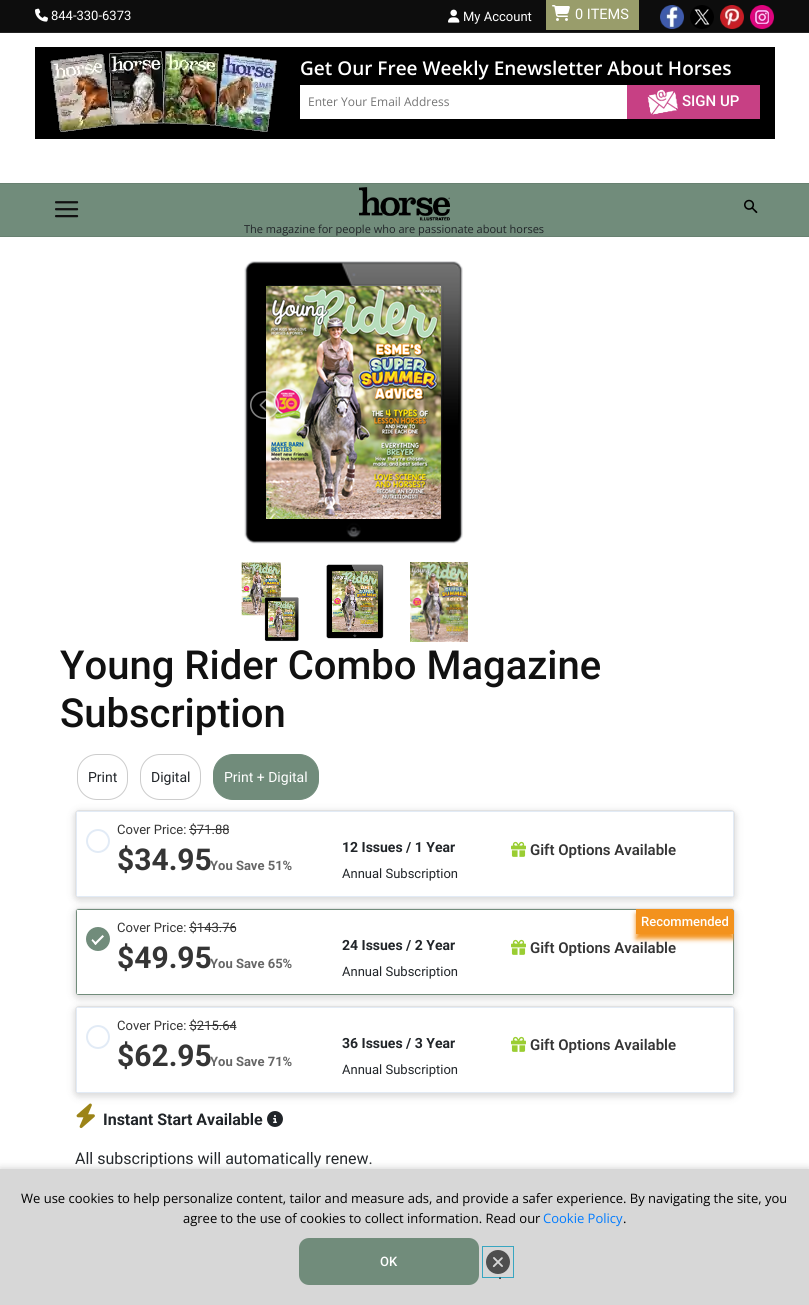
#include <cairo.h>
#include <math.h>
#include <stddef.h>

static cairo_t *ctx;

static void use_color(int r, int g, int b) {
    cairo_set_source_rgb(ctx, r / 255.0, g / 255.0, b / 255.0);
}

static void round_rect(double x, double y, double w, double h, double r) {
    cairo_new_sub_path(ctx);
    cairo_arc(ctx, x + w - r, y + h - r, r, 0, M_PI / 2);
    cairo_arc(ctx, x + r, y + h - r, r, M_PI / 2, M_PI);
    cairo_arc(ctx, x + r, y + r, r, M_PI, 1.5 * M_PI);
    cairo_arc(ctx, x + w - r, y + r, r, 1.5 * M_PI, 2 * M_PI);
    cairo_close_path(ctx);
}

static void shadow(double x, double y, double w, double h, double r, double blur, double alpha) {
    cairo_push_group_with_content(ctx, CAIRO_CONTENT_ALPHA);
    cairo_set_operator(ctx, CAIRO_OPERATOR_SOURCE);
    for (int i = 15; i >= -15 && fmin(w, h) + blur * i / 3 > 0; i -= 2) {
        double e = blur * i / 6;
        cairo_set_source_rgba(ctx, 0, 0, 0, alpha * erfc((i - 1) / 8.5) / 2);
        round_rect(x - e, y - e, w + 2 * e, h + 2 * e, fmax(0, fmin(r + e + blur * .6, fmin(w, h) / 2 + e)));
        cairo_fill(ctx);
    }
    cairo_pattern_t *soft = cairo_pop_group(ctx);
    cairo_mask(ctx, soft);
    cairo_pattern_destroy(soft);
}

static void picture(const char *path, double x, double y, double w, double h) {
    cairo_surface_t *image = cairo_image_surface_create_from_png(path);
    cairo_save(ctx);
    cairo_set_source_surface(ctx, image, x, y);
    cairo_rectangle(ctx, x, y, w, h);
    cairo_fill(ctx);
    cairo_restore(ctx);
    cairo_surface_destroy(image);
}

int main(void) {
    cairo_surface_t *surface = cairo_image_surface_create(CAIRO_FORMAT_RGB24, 809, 1305);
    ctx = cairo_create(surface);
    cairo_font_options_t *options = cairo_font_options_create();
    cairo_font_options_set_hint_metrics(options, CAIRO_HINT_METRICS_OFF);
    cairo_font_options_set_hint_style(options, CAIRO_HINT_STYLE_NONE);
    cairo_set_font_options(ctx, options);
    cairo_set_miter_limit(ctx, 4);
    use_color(255, 255, 255);
    cairo_paint(ctx);
    use_color(13, 13, 13);
    cairo_rectangle(ctx, 0, 0, 809, 32);
    cairo_fill(ctx);
    picture("img1.png", 35, 8, 13, 14);
    cairo_select_font_face(ctx, "Roboto", CAIRO_FONT_SLANT_NORMAL, CAIRO_FONT_WEIGHT_NORMAL);
    cairo_set_font_size(ctx, 13);
    use_color(255, 255, 255);
    cairo_move_to(ctx, 51, 20);
    cairo_show_text(ctx, "844-330-6373");
    picture("img2.png", 448, 9, 12, 14);
    cairo_move_to(ctx, 463, 21);
    cairo_show_text(ctx, "My Account");
    use_color(153, 157, 107);
    cairo_rectangle(ctx, 546, 0, 93, 30);
    cairo_fill(ctx);
    picture("img3.png", 552, 5, 18, 16);
    cairo_set_font_size(ctx, 14.5);
    use_color(255, 255, 255);
    cairo_move_to(ctx, 575, 19);
    cairo_show_text(ctx, "0 ITEMS");
    picture("img4.png", 660, 5, 24, 24);
    picture("img5.png", 690, 5, 24, 24);
    picture("img6.png", 720, 5, 24, 24);
    picture("img7.png", 750, 5, 24, 24);
    use_color(34, 34, 34);
    cairo_rectangle(ctx, 0, 32, 809, 1);
    cairo_fill(ctx);
    use_color(0, 0, 0);
    cairo_rectangle(ctx, 35, 47, 740, 92);
    cairo_fill(ctx);
    picture("img8.png", 50, 51, 227, 81);
    cairo_select_font_face(ctx, "Open Sans SemiBold", CAIRO_FONT_SLANT_NORMAL, CAIRO_FONT_WEIGHT_NORMAL);
    cairo_set_font_size(ctx, 19);
    use_color(255, 255, 255);
    cairo_move_to(ctx, 300, 75);
    cairo_show_text(ctx, "Get Our Free Weekly Enewsletter About Horses");
    cairo_rectangle(ctx, 300, 85, 327, 34);
    cairo_fill(ctx);
    cairo_select_font_face(ctx, "Open Sans", CAIRO_FONT_SLANT_NORMAL, CAIRO_FONT_WEIGHT_NORMAL);
    cairo_set_font_size(ctx, 12);
    use_color(117, 117, 117);
    cairo_move_to(ctx, 308, 106);
    cairo_show_text(ctx, "Enter Your Email Address");
    use_color(199, 64, 132);
    cairo_rectangle(ctx, 627, 85, 133, 34);
    cairo_fill(ctx);
    picture("img9.png", 647, 89, 31, 26);
    cairo_select_font_face(ctx, "Roboto Medium", CAIRO_FONT_SLANT_NORMAL, CAIRO_FONT_WEIGHT_NORMAL);
    cairo_set_font_size(ctx, 15);
    use_color(255, 255, 255);
    cairo_move_to(ctx, 682, 106);
    cairo_show_text(ctx, "SIGN UP");
    use_color(113, 140, 123);
    cairo_rectangle(ctx, 0, 184, 809, 52);
    cairo_fill(ctx);
    use_color(104, 129, 113);
    cairo_rectangle(ctx, 0, 183, 809, 1);
    cairo_fill(ctx);
    picture("img10.png", 744, 199, 14, 15);
    picture("img11.png", 55, 201, 24, 17);
    picture("img12.png", 359, 187, 91, 34);
    cairo_select_font_face(ctx, "Open Sans", CAIRO_FONT_SLANT_NORMAL, CAIRO_FONT_WEIGHT_NORMAL);
    cairo_set_font_size(ctx, 11);
    use_color(33, 37, 41);
    cairo_move_to(ctx, 244, 233);
    cairo_show_text(ctx, "The magazine for people who are passionate about horses");
    use_color(104, 129, 113);
    cairo_rectangle(ctx, 0, 236, 809, 1);
    cairo_fill(ctx);
    picture("img13.png", 244, 261, 219, 283);
    picture("img14.png", 250, 391, 29, 28);
    picture("img15.png", 241, 562, 58, 80);
    picture("img16.png", 326, 564, 58, 75);
    picture("img17.png", 410, 562, 58, 80);
    cairo_select_font_face(ctx, "Roboto Medium", CAIRO_FONT_SLANT_NORMAL, CAIRO_FONT_WEIGHT_NORMAL);
    cairo_set_font_size(ctx, 40);
    use_color(17, 17, 17);
    cairo_move_to(ctx, 60, 679);
    cairo_show_text(ctx, "Young Rider Combo Magazine");
    cairo_move_to(ctx, 60, 727);
    cairo_show_text(ctx, "Subscription");
    round_rect(77.5, 754.5, 50, 45, 19.5);
    use_color(204, 204, 204);
    cairo_set_line_width(ctx, 1);
    cairo_stroke(ctx);
    cairo_select_font_face(ctx, "Roboto", CAIRO_FONT_SLANT_NORMAL, CAIRO_FONT_WEIGHT_NORMAL);
    cairo_set_font_size(ctx, 14);
    use_color(33, 37, 41);
    cairo_move_to(ctx, 88, 782);
    cairo_show_text(ctx, "Print");
    round_rect(140.5, 754.5, 60, 45, 19.5);
    use_color(204, 204, 204);
    cairo_stroke(ctx);
    use_color(33, 37, 41);
    cairo_move_to(ctx, 151, 782);
    cairo_show_text(ctx, "Digital");
    use_color(113, 140, 123);
    round_rect(213.5, 754.5, 105, 45, 19.5);
    cairo_fill_preserve(ctx);
    cairo_stroke(ctx);
    use_color(255, 255, 255);
    cairo_move_to(ctx, 224, 782);
    cairo_show_text(ctx, "Print + Digital");
    use_color(0, 0, 0);
    shadow(75, 812, 660, 88, 4, 4, 0.17);
    use_color(255, 255, 255);
    round_rect(75, 810, 660, 88, 4);
    cairo_fill(ctx);
    round_rect(75.5, 810.5, 659, 87, 3.5);
    cairo_set_source_rgba(ctx, 0, 0, 0, 0.12);
    cairo_stroke(ctx);
    use_color(226, 235, 246);
    cairo_set_fill_rule(ctx, CAIRO_FILL_RULE_EVEN_ODD);
    cairo_new_path(ctx);
    cairo_move_to(ctx, 79, 811);
    cairo_curve_to(ctx, 77, 811, 76, 812, 76, 814);
    cairo_line_to(ctx, 76, 894);
    cairo_curve_to(ctx, 76, 896, 77, 897, 79, 897);
    cairo_line_to(ctx, 731, 897);
    cairo_curve_to(ctx, 733, 897, 734, 896, 734, 894);
    cairo_line_to(ctx, 734, 814);
    cairo_curve_to(ctx, 734, 812, 733, 811, 731, 811);
    cairo_close_path(ctx);
    cairo_move_to(ctx, 77, 812);
    cairo_line_to(ctx, 77, 896);
    cairo_line_to(ctx, 733, 896);
    cairo_line_to(ctx, 733, 812);
    cairo_close_path(ctx);
    cairo_fill(ctx);
    cairo_arc(ctx, 98, 841, 11, 0, 2 * M_PI);
    cairo_set_line_width(ctx, 2);
    cairo_stroke(ctx);
    cairo_set_font_size(ctx, 13);
    use_color(53, 53, 53);
    cairo_move_to(ctx, 117, 834);
    cairo_show_text(ctx, "Cover Price: $71.88");
    cairo_rectangle(ctx, 189, 829, 40, 1);
    cairo_fill(ctx);
    cairo_select_font_face(ctx, "Roboto", CAIRO_FONT_SLANT_NORMAL, CAIRO_FONT_WEIGHT_BOLD);
    cairo_set_font_size(ctx, 30);
    cairo_move_to(ctx, 117, 870);
    cairo_show_text(ctx, "$34.95");
    cairo_set_font_size(ctx, 13);
    use_color(102, 102, 102);
    cairo_move_to(ctx, 210, 870);
    cairo_show_text(ctx, "You Save 51%");
    cairo_set_font_size(ctx, 14);
    use_color(33, 37, 41);
    cairo_move_to(ctx, 342, 852);
    cairo_show_text(ctx, "12 Issues / 1 Year");
    cairo_select_font_face(ctx, "Roboto", CAIRO_FONT_SLANT_NORMAL, CAIRO_FONT_WEIGHT_NORMAL);
    cairo_set_font_size(ctx, 13);
    cairo_move_to(ctx, 342, 878);
    cairo_show_text(ctx, "Annual Subscription");
    picture("img18.png", 511, 841, 15, 16);
    cairo_select_font_face(ctx, "Roboto SemiBold", CAIRO_FONT_SLANT_NORMAL, CAIRO_FONT_WEIGHT_NORMAL);
    cairo_set_font_size(ctx, 15);
    use_color(53, 53, 53);
    cairo_move_to(ctx, 530, 855);
    cairo_show_text(ctx, "Gift Options Available");
    use_color(0, 0, 0);
    shadow(75, 910, 660, 88, 4, 4, 0.17);
    use_color(255, 255, 255);
    round_rect(75, 908, 660, 88, 4);
    cairo_fill(ctx);
    round_rect(75.5, 908.5, 659, 87, 3.5);
    cairo_set_source_rgba(ctx, 0, 0, 0, 0.12);
    cairo_set_line_width(ctx, 1);
    cairo_stroke(ctx);
    use_color(113, 140, 123);
    cairo_new_path(ctx);
    cairo_move_to(ctx, 79, 909);
    cairo_curve_to(ctx, 77, 909, 76, 910, 76, 912);
    cairo_line_to(ctx, 76, 992);
    cairo_curve_to(ctx, 76, 994, 77, 995, 79, 995);
    cairo_line_to(ctx, 731, 995);
    cairo_curve_to(ctx, 733, 995, 734, 994, 734, 992);
    cairo_line_to(ctx, 734, 912);
    cairo_curve_to(ctx, 734, 910, 733, 909, 731, 909);
    cairo_close_path(ctx);
    cairo_move_to(ctx, 77, 910);
    cairo_line_to(ctx, 77, 994);
    cairo_line_to(ctx, 733, 994);
    cairo_line_to(ctx, 733, 910);
    cairo_close_path(ctx);
    cairo_fill(ctx);
    cairo_arc(ctx, 98, 939, 11, 0, 2 * M_PI);
    cairo_fill_preserve(ctx);
    cairo_set_line_width(ctx, 2);
    cairo_stroke(ctx);
    use_color(255, 255, 255);
    cairo_set_fill_rule(ctx, CAIRO_FILL_RULE_WINDING);
    cairo_new_path(ctx);
    cairo_move_to(ctx, 102.5, 935);
    cairo_line_to(ctx, 104, 936.5);
    cairo_line_to(ctx, 95.5, 945);
    cairo_line_to(ctx, 94, 943.5);
    cairo_close_path(ctx);
    cairo_fill(ctx);
    cairo_new_path(ctx);
    cairo_move_to(ctx, 92.5, 939);
    cairo_line_to(ctx, 97, 943.5);
    cairo_line_to(ctx, 95.5, 945);
    cairo_line_to(ctx, 91.5, 940.5);
    cairo_close_path(ctx);
    cairo_fill(ctx);
    cairo_select_font_face(ctx, "Roboto", CAIRO_FONT_SLANT_NORMAL, CAIRO_FONT_WEIGHT_NORMAL);
    cairo_set_font_size(ctx, 13);
    use_color(53, 53, 53);
    cairo_move_to(ctx, 117, 932);
    cairo_show_text(ctx, "Cover Price: $143.76");
    cairo_rectangle(ctx, 189, 927, 47, 1);
    cairo_fill(ctx);
    cairo_select_font_face(ctx, "Roboto", CAIRO_FONT_SLANT_NORMAL, CAIRO_FONT_WEIGHT_BOLD);
    cairo_set_font_size(ctx, 30);
    cairo_move_to(ctx, 117, 968);
    cairo_show_text(ctx, "$49.95");
    cairo_set_font_size(ctx, 13);
    use_color(102, 102, 102);
    cairo_move_to(ctx, 210, 968);
    cairo_show_text(ctx, "You Save 65%");
    cairo_set_font_size(ctx, 14);
    use_color(33, 37, 41);
    cairo_move_to(ctx, 342, 950);
    cairo_show_text(ctx, "24 Issues / 2 Year");
    cairo_select_font_face(ctx, "Roboto", CAIRO_FONT_SLANT_NORMAL, CAIRO_FONT_WEIGHT_NORMAL);
    cairo_set_font_size(ctx, 13);
    cairo_move_to(ctx, 342, 976);
    cairo_show_text(ctx, "Annual Subscription");
    picture("img18.png", 511, 939, 15, 16);
    cairo_save(ctx);
    round_rect(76, 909, 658, 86, 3);
    cairo_clip(ctx);
    use_color(243, 146, 29);
    shadow(636, 914, 98, 25, 0, 2.5, 1);
    cairo_restore(ctx);
    cairo_select_font_face(ctx, "Roboto SemiBold", CAIRO_FONT_SLANT_NORMAL, CAIRO_FONT_WEIGHT_NORMAL);
    cairo_set_font_size(ctx, 15);
    use_color(53, 53, 53);
    cairo_move_to(ctx, 530, 953);
    cairo_show_text(ctx, "Gift Options Available");
    use_color(243, 146, 29);
    cairo_new_path(ctx);
    cairo_move_to(ctx, 636, 909);
    cairo_line_to(ctx, 731, 909);
    cairo_curve_to(ctx, 732.5, 909, 734, 910.5, 734, 912);
    cairo_line_to(ctx, 734, 934);
    cairo_line_to(ctx, 636, 934);
    cairo_close_path(ctx);
    cairo_fill(ctx);
    cairo_select_font_face(ctx, "Roboto Medium", CAIRO_FONT_SLANT_NORMAL, CAIRO_FONT_WEIGHT_NORMAL);
    cairo_set_font_size(ctx, 13);
    use_color(255, 255, 255);
    cairo_move_to(ctx, 641, 926);
    cairo_show_text(ctx, "Recommended");
    use_color(0, 0, 0);
    shadow(75, 1008, 660, 88, 4, 4, 0.17);
    use_color(255, 255, 255);
    round_rect(75, 1006, 660, 88, 4);
    cairo_fill(ctx);
    round_rect(75.5, 1006.5, 659, 87, 3.5);
    cairo_set_source_rgba(ctx, 0, 0, 0, 0.12);
    cairo_set_line_width(ctx, 1);
    cairo_stroke(ctx);
    use_color(226, 235, 246);
    cairo_set_fill_rule(ctx, CAIRO_FILL_RULE_EVEN_ODD);
    cairo_new_path(ctx);
    cairo_move_to(ctx, 79, 1007);
    cairo_curve_to(ctx, 77, 1007, 76, 1008, 76, 1010);
    cairo_line_to(ctx, 76, 1090);
    cairo_curve_to(ctx, 76, 1092, 77, 1093, 79, 1093);
    cairo_line_to(ctx, 731, 1093);
    cairo_curve_to(ctx, 733, 1093, 734, 1092, 734, 1090);
    cairo_line_to(ctx, 734, 1010);
    cairo_curve_to(ctx, 734, 1008, 733, 1007, 731, 1007);
    cairo_close_path(ctx);
    cairo_move_to(ctx, 77, 1008);
    cairo_line_to(ctx, 77, 1092);
    cairo_line_to(ctx, 733, 1092);
    cairo_line_to(ctx, 733, 1008);
    cairo_close_path(ctx);
    cairo_fill(ctx);
    cairo_arc(ctx, 98, 1037, 11, 0, 2 * M_PI);
    cairo_set_line_width(ctx, 2);
    cairo_stroke(ctx);
    cairo_select_font_face(ctx, "Roboto", CAIRO_FONT_SLANT_NORMAL, CAIRO_FONT_WEIGHT_NORMAL);
    use_color(53, 53, 53);
    cairo_move_to(ctx, 117, 1030);
    cairo_show_text(ctx, "Cover Price: $215.64");
    cairo_rectangle(ctx, 189, 1025, 47, 1);
    cairo_fill(ctx);
    cairo_select_font_face(ctx, "Roboto", CAIRO_FONT_SLANT_NORMAL, CAIRO_FONT_WEIGHT_BOLD);
    cairo_set_font_size(ctx, 30);
    cairo_move_to(ctx, 117, 1066);
    cairo_show_text(ctx, "$62.95");
    cairo_set_font_size(ctx, 13);
    use_color(102, 102, 102);
    cairo_move_to(ctx, 210, 1066);
    cairo_show_text(ctx, "You Save 71%");
    cairo_set_font_size(ctx, 14);
    use_color(33, 37, 41);
    cairo_move_to(ctx, 342, 1048);
    cairo_show_text(ctx, "36 Issues / 3 Year");
    cairo_select_font_face(ctx, "Roboto", CAIRO_FONT_SLANT_NORMAL, CAIRO_FONT_WEIGHT_NORMAL);
    cairo_set_font_size(ctx, 13);
    cairo_move_to(ctx, 342, 1074);
    cairo_show_text(ctx, "Annual Subscription");
    picture("img18.png", 511, 1036, 15, 16);
    cairo_select_font_face(ctx, "Roboto SemiBold", CAIRO_FONT_SLANT_NORMAL, CAIRO_FONT_WEIGHT_NORMAL);
    cairo_set_font_size(ctx, 15);
    use_color(53, 53, 53);
    cairo_move_to(ctx, 530, 1050);
    cairo_show_text(ctx, "Gift Options Available");
    picture("img19.png", 76, 1103, 19, 26);
    cairo_select_font_face(ctx, "Roboto", CAIRO_FONT_SLANT_NORMAL, CAIRO_FONT_WEIGHT_BOLD);
    cairo_set_font_size(ctx, 16);
    use_color(33, 37, 41);
    cairo_move_to(ctx, 103, 1125);
    cairo_show_text(ctx, "Instant Start Available");
    picture("img20.png", 267, 1111, 16, 16);
    cairo_select_font_face(ctx, "Roboto", CAIRO_FONT_SLANT_NORMAL, CAIRO_FONT_WEIGHT_NORMAL);
    cairo_move_to(ctx, 75, 1164);
    cairo_show_text(ctx, "All subscriptions will automatically renew.");
    use_color(204, 204, 204);
    shadow(0, 1169, 809, 136, 0, 4, 1);
    use_color(215, 215, 215);
    cairo_rectangle(ctx, 0, 1169, 809, 136);
    cairo_fill(ctx);
    cairo_select_font_face(ctx, "Open Sans", CAIRO_FONT_SLANT_NORMAL, CAIRO_FONT_WEIGHT_NORMAL);
    cairo_set_font_size(ctx, 13);
    use_color(0, 0, 0);
    cairo_move_to(ctx, 21, 1203);
    cairo_show_text(ctx, "We use cookies to help personalize content, tailor and measure ads, and provide a safer experience. By navigating the site, you");
    cairo_move_to(ctx, 183, 1223);
    cairo_show_text(ctx, "agree to the use of cookies to collect information. Read our");
    use_color(0, 123, 255);
    cairo_move_to(ctx, 543, 1223);
    cairo_show_text(ctx, "Cookie Policy");
    use_color(0, 0, 0);
    cairo_move_to(ctx, 623, 1223);
    cairo_show_text(ctx, ".");
    use_color(113, 140, 123);
    round_rect(299, 1238, 180, 47, 10);
    cairo_fill(ctx);
    cairo_select_font_face(ctx, "Roboto Medium", CAIRO_FONT_SLANT_NORMAL, CAIRO_FONT_WEIGHT_NORMAL);
    use_color(255, 255, 255);
    cairo_move_to(ctx, 380, 1266);
    cairo_show_text(ctx, "OK");
    picture("img21.png", 486, 1250, 24, 24);
    cairo_rectangle(ctx, 482.5, 1246.5, 31, 31);
    use_color(56, 166, 193);
    cairo_set_line_width(ctx, 1);
    cairo_stroke(ctx);
    cairo_select_font_face(ctx, "Roboto", CAIRO_FONT_SLANT_NORMAL, CAIRO_FONT_WEIGHT_NORMAL);
    cairo_set_font_size(ctx, 16);
    use_color(33, 37, 41);
    cairo_move_to(ctx, 498, 1279);
    cairo_show_text(ctx, ".");
    cairo_surface_write_to_png(surface, "result.png");
    cairo_font_options_destroy(options);
    cairo_destroy(ctx);
    cairo_surface_destroy(surface);
    return 0;
}
